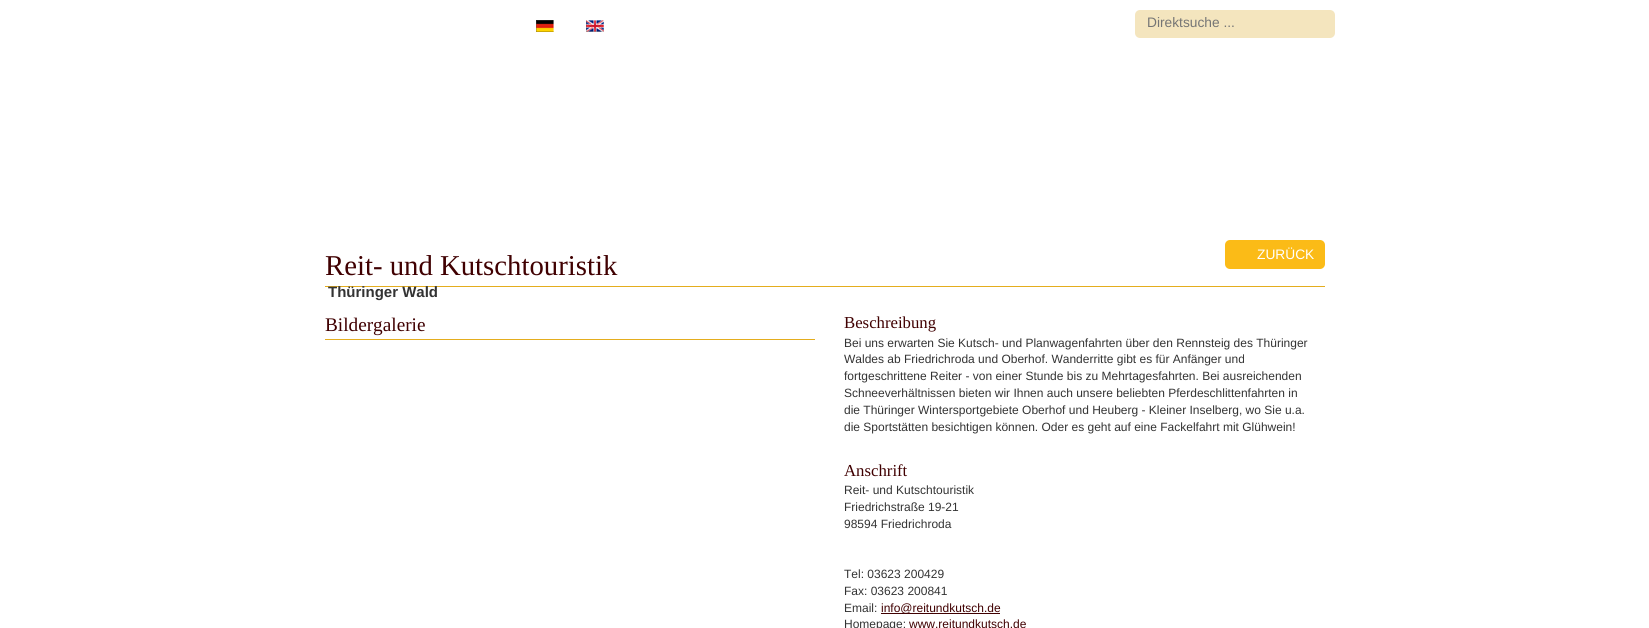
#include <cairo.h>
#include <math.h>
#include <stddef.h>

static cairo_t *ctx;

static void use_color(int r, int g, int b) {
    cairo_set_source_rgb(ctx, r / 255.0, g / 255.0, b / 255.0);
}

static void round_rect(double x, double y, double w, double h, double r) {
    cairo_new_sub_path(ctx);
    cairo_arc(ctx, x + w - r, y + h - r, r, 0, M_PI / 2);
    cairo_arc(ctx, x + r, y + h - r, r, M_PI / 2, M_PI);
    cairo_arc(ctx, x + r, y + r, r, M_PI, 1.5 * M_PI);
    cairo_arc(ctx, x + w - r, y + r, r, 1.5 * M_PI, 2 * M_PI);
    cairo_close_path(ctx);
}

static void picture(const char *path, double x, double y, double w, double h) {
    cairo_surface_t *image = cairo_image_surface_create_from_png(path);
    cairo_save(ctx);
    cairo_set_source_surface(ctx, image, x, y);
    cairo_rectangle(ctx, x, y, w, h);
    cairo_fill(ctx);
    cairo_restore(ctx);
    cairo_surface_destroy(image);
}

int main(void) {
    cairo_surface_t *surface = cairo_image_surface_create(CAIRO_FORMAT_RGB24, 1649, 628);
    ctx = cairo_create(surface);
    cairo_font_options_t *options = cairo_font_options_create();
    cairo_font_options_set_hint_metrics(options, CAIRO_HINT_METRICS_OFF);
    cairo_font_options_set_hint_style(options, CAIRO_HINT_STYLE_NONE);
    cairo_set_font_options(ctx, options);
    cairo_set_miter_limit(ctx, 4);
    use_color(255, 255, 255);
    cairo_paint(ctx);
    picture("img1.png", 536, 20, 18, 12);
    picture("img2.png", 586, 20, 18, 12);
    use_color(244, 229, 190);
    round_rect(1135, 10, 200, 28, 5);
    cairo_fill(ctx);
    cairo_select_font_face(ctx, "Liberation Sans", CAIRO_FONT_SLANT_NORMAL, CAIRO_FONT_WEIGHT_NORMAL);
    cairo_set_font_size(ctx, 13.75);
    use_color(117, 117, 117);
    cairo_move_to(ctx, 1147, 27);
    cairo_show_text(ctx, "Direktsuche ...");
    use_color(228, 173, 30);
    cairo_rectangle(ctx, 325, 286, 1000, 1);
    cairo_fill(ctx);
    use_color(251, 187, 23);
    round_rect(1225, 240, 100, 29, 5);
    cairo_fill(ctx);
    use_color(255, 255, 255);
    cairo_move_to(ctx, 1257, 259);
    cairo_show_text(ctx, "ZURÜCK");
    cairo_select_font_face(ctx, "Liberation Serif", CAIRO_FONT_SLANT_NORMAL, CAIRO_FONT_WEIGHT_NORMAL);
    cairo_set_font_size(ctx, 28.75);
    use_color(64, 0, 1);
    cairo_move_to(ctx, 325, 275);
    cairo_show_text(ctx, "Reit- und Kutschtouristik");
    cairo_select_font_face(ctx, "Liberation Sans", CAIRO_FONT_SLANT_NORMAL, CAIRO_FONT_WEIGHT_BOLD);
    cairo_set_font_size(ctx, 15);
    use_color(51, 51, 51);
    cairo_move_to(ctx, 328, 297);
    cairo_show_text(ctx, "Thüringer Wald");
    cairo_select_font_face(ctx, "Liberation Serif", CAIRO_FONT_SLANT_NORMAL, CAIRO_FONT_WEIGHT_NORMAL);
    cairo_set_font_size(ctx, 16.75);
    use_color(64, 0, 1);
    cairo_move_to(ctx, 844, 328);
    cairo_show_text(ctx, "Beschreibung");
    cairo_select_font_face(ctx, "Liberation Sans", CAIRO_FONT_SLANT_NORMAL, CAIRO_FONT_WEIGHT_NORMAL);
    cairo_set_font_size(ctx, 12);
    use_color(51, 51, 51);
    cairo_move_to(ctx, 844, 347);
    cairo_show_text(ctx, "Bei uns erwarten Sie Kutsch- und Planwagenfahrten über den Rennsteig des Thüringer");
    cairo_move_to(ctx, 844, 363);
    cairo_show_text(ctx, "Waldes ab Friedrichroda und Oberhof. Wanderritte gibt es für Anfänger und");
    cairo_move_to(ctx, 844, 380);
    cairo_show_text(ctx, "fortgeschrittene Reiter - von einer Stunde bis zu Mehrtagesfahrten. Bei ausreichenden");
    cairo_move_to(ctx, 844, 397);
    cairo_show_text(ctx, "Schneeverhältnissen bieten wir Ihnen auch unsere beliebten Pferdeschlittenfahrten in");
    cairo_move_to(ctx, 844, 414);
    cairo_show_text(ctx, "die Thüringer Wintersportgebiete Oberhof und Heuberg - Kleiner Inselberg, wo Sie u.a.");
    cairo_move_to(ctx, 844, 431);
    cairo_show_text(ctx, "die Sportstätten besichtigen können. Oder es geht auf eine Fackelfahrt mit Glühwein!");
    cairo_select_font_face(ctx, "Liberation Serif", CAIRO_FONT_SLANT_NORMAL, CAIRO_FONT_WEIGHT_NORMAL);
    cairo_set_font_size(ctx, 16.75);
    use_color(64, 0, 1);
    cairo_move_to(ctx, 844, 476);
    cairo_show_text(ctx, "Anschrift");
    cairo_select_font_face(ctx, "Liberation Sans", CAIRO_FONT_SLANT_NORMAL, CAIRO_FONT_WEIGHT_NORMAL);
    cairo_set_font_size(ctx, 12);
    use_color(51, 51, 51);
    cairo_move_to(ctx, 844, 494);
    cairo_show_text(ctx, "Reit- und Kutschtouristik");
    cairo_move_to(ctx, 844, 511);
    cairo_show_text(ctx, "Friedrichstraße 19-21");
    cairo_move_to(ctx, 844, 528);
    cairo_show_text(ctx, "98594 Friedrichroda");
    cairo_move_to(ctx, 844, 578);
    cairo_show_text(ctx, "Tel: 03623 200429");
    cairo_move_to(ctx, 844, 595);
    cairo_show_text(ctx, "Fax: 03623 200841");
    cairo_move_to(ctx, 844, 612);
    cairo_show_text(ctx, "Email:");
    use_color(64, 0, 1);
    cairo_rectangle(ctx, 881, 613, 119, 1);
    cairo_fill(ctx);
    cairo_move_to(ctx, 881, 612);
    cairo_show_text(ctx, "info@reitundkutsch.de");
    use_color(51, 51, 51);
    cairo_move_to(ctx, 844, 628);
    cairo_show_text(ctx, "Homepage:");
    use_color(64, 0, 1);
    cairo_move_to(ctx, 909, 628);
    cairo_show_text(ctx, "www.reitundkutsch.de");
    use_color(228, 173, 30);
    cairo_rectangle(ctx, 325, 339, 490, 1);
    cairo_fill(ctx);
    cairo_select_font_face(ctx, "Liberation Serif", CAIRO_FONT_SLANT_NORMAL, CAIRO_FONT_WEIGHT_NORMAL);
    cairo_set_font_size(ctx, 19.25);
    use_color(64, 0, 1);
    cairo_move_to(ctx, 325, 331);
    cairo_show_text(ctx, "Bildergalerie");
    cairo_surface_write_to_png(surface, "result.png");
    cairo_font_options_destroy(options);
    cairo_destroy(ctx);
    cairo_surface_destroy(surface);
    return 0;
}
